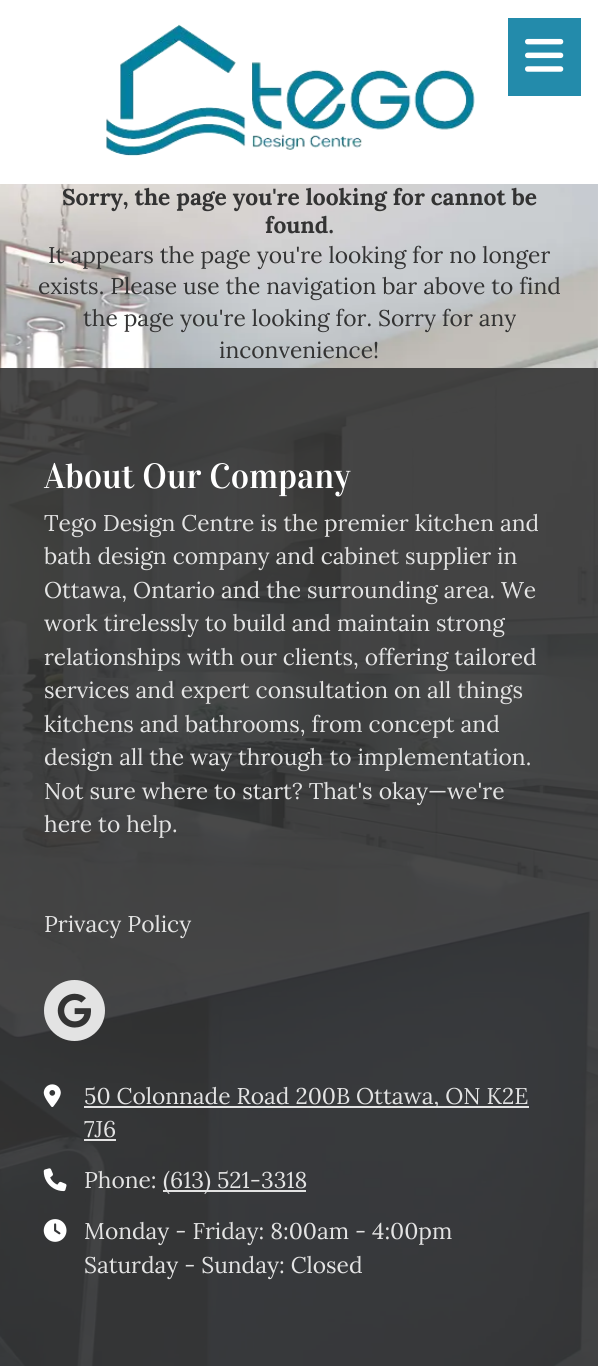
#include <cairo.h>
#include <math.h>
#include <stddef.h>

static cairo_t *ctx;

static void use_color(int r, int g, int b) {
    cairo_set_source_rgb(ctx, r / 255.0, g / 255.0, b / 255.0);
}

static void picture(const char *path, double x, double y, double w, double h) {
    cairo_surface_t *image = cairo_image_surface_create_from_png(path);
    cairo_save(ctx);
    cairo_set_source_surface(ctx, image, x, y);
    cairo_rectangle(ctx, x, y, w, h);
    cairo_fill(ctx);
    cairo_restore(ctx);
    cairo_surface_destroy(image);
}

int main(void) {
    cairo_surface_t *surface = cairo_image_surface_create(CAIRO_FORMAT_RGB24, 598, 1366);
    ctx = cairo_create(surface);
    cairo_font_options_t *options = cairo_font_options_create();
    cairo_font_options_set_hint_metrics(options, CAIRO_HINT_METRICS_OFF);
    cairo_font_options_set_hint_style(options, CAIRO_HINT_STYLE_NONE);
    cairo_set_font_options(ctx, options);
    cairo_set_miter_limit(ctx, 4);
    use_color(255, 255, 255);
    cairo_paint(ctx);
    picture("img1.png", 0, 184, 598, 1182);
    picture("img2.png", 106, 24, 369, 132);
    use_color(35, 139, 171);
    cairo_rectangle(ctx, 508, 18, 73, 78);
    cairo_fill(ctx);
    picture("img3.png", 525, 38, 39, 34);
    cairo_select_font_face(ctx, "Lora", CAIRO_FONT_SLANT_NORMAL, CAIRO_FONT_WEIGHT_BOLD);
    cairo_set_font_size(ctx, 22.75);
    use_color(51, 51, 51);
    cairo_move_to(ctx, 62, 205);
    cairo_show_text(ctx, "Sorry, the page you're looking for cannot be");
    cairo_move_to(ctx, 265, 233);
    cairo_show_text(ctx, "found.");
    cairo_select_font_face(ctx, "Lora", CAIRO_FONT_SLANT_NORMAL, CAIRO_FONT_WEIGHT_NORMAL);
    cairo_move_to(ctx, 48, 263);
    cairo_show_text(ctx, "It appears the page you're looking for no longer");
    cairo_move_to(ctx, 38, 294);
    cairo_show_text(ctx, "exists. Please use the navigation bar above to find");
    cairo_move_to(ctx, 83, 326);
    cairo_show_text(ctx, "the page you're looking for. Sorry for any");
    cairo_move_to(ctx, 219, 358);
    cairo_show_text(ctx, "inconvenience!");
    cairo_set_source_rgba(ctx, 0.2, 0.2, 0.2, 0.89);
    cairo_rectangle(ctx, 0, 368, 598, 998);
    cairo_fill(ctx);
    cairo_select_font_face(ctx, "Vidaloka", CAIRO_FONT_SLANT_NORMAL, CAIRO_FONT_WEIGHT_NORMAL);
    cairo_set_font_size(ctx, 35);
    use_color(255, 255, 255);
    cairo_move_to(ctx, 44, 488);
    cairo_show_text(ctx, "About Our Company");
    cairo_select_font_face(ctx, "Lora", CAIRO_FONT_SLANT_NORMAL, CAIRO_FONT_WEIGHT_NORMAL);
    cairo_set_font_size(ctx, 22.75);
    use_color(227, 227, 227);
    cairo_move_to(ctx, 44, 531);
    cairo_show_text(ctx, "Tego Design Centre is the premier kitchen and");
    cairo_move_to(ctx, 44, 564);
    cairo_show_text(ctx, "bath design company and cabinet supplier in");
    cairo_move_to(ctx, 44, 598);
    cairo_show_text(ctx, "Ottawa, Ontario and the surrounding area. We");
    cairo_move_to(ctx, 44, 631);
    cairo_show_text(ctx, "work tirelessly to build and maintain strong");
    cairo_move_to(ctx, 44, 665);
    cairo_show_text(ctx, "relationships with our clients, offering tailored");
    cairo_move_to(ctx, 44, 698);
    cairo_show_text(ctx, "services and expert consultation on all things");
    cairo_move_to(ctx, 44, 732);
    cairo_show_text(ctx, "kitchens and bathrooms, from concept and");
    cairo_move_to(ctx, 44, 765);
    cairo_show_text(ctx, "design all the way through to implementation.");
    cairo_move_to(ctx, 44, 799);
    cairo_show_text(ctx, "Not sure where to start? That's okay—we're");
    cairo_move_to(ctx, 44, 832);
    cairo_show_text(ctx, "here to help.");
    cairo_move_to(ctx, 44, 932);
    cairo_show_text(ctx, "Privacy Policy");
    cairo_new_path(ctx);
    cairo_arc(ctx, 74.5, 1010.5, 30.5, 0, 2 * M_PI);
    cairo_fill(ctx);
    picture("img4.png", 57, 993, 34, 35);
    picture("img5.png", 43, 1084, 18, 23);
    cairo_rectangle(ctx, 84, 1106, 445, 2);
    cairo_fill(ctx);
    cairo_move_to(ctx, 84, 1104);
    cairo_show_text(ctx, "50 Colonnade Road 200B Ottawa, ON K2E");
    cairo_move_to(ctx, 84, 1137);
    cairo_show_text(ctx, "7J6");
    cairo_rectangle(ctx, 84, 1139, 32, 2);
    cairo_fill(ctx);
    picture("img6.png", 43, 1168, 24, 24);
    cairo_move_to(ctx, 84, 1188);
    cairo_show_text(ctx, "Phone:");
    cairo_rectangle(ctx, 163, 1190, 143, 2);
    cairo_fill(ctx);
    cairo_move_to(ctx, 163, 1188);
    cairo_show_text(ctx, "(613) 521-3318");
    picture("img7.png", 43, 1219, 24, 23);
    cairo_move_to(ctx, 84, 1239);
    cairo_show_text(ctx, "Monday - Friday: 8:00am - 4:00pm");
    cairo_move_to(ctx, 84, 1273);
    cairo_show_text(ctx, "Saturday - Sunday: Closed");
    cairo_surface_write_to_png(surface, "result.png");
    cairo_font_options_destroy(options);
    cairo_destroy(ctx);
    cairo_surface_destroy(surface);
    return 0;
}
